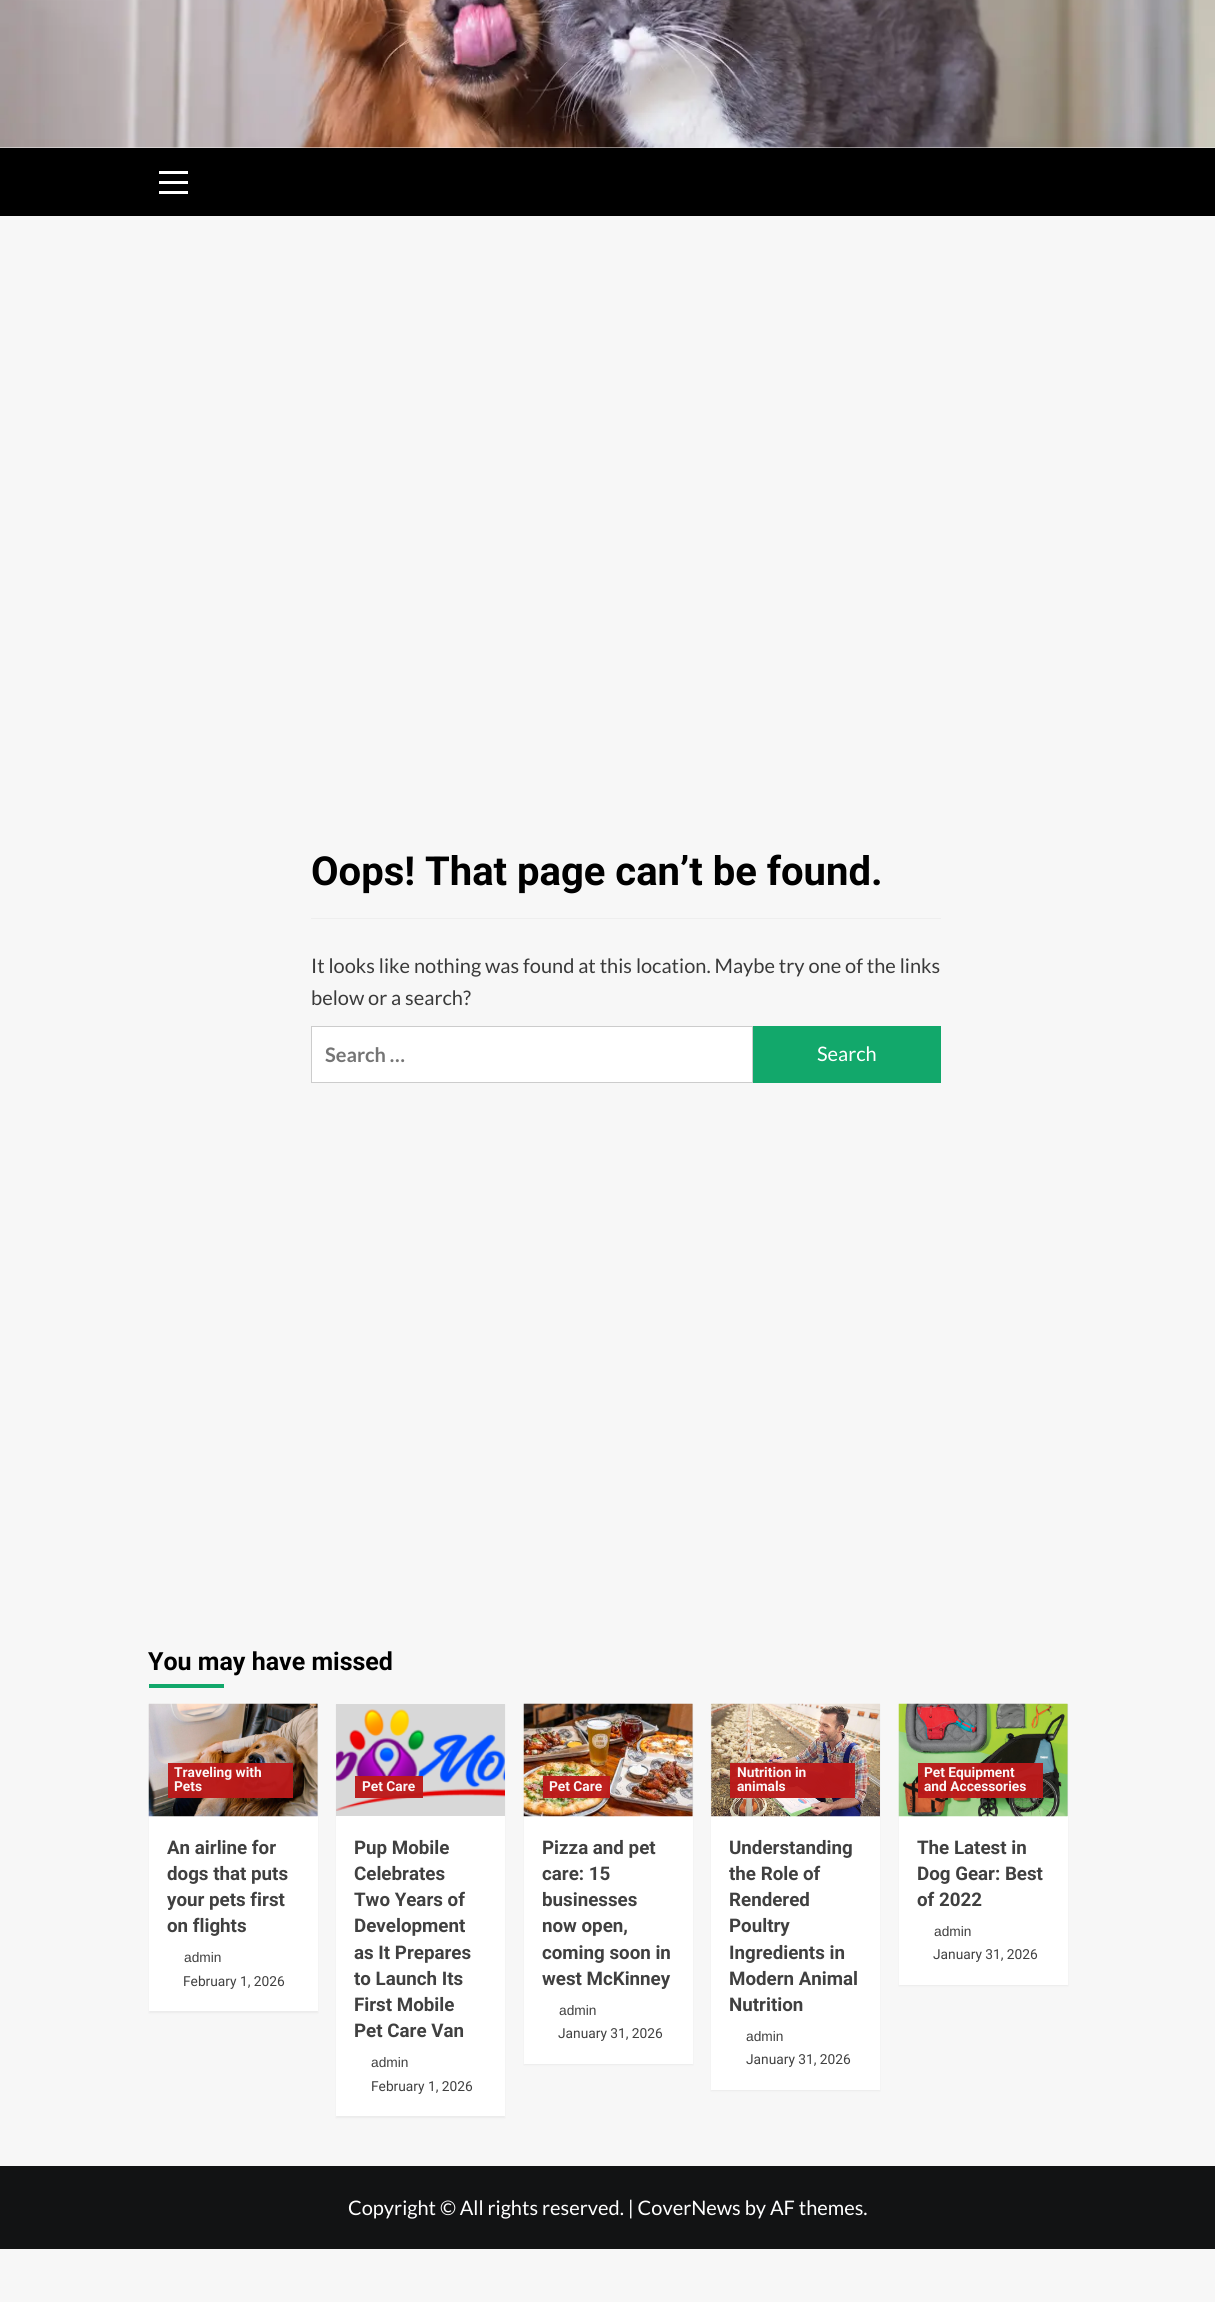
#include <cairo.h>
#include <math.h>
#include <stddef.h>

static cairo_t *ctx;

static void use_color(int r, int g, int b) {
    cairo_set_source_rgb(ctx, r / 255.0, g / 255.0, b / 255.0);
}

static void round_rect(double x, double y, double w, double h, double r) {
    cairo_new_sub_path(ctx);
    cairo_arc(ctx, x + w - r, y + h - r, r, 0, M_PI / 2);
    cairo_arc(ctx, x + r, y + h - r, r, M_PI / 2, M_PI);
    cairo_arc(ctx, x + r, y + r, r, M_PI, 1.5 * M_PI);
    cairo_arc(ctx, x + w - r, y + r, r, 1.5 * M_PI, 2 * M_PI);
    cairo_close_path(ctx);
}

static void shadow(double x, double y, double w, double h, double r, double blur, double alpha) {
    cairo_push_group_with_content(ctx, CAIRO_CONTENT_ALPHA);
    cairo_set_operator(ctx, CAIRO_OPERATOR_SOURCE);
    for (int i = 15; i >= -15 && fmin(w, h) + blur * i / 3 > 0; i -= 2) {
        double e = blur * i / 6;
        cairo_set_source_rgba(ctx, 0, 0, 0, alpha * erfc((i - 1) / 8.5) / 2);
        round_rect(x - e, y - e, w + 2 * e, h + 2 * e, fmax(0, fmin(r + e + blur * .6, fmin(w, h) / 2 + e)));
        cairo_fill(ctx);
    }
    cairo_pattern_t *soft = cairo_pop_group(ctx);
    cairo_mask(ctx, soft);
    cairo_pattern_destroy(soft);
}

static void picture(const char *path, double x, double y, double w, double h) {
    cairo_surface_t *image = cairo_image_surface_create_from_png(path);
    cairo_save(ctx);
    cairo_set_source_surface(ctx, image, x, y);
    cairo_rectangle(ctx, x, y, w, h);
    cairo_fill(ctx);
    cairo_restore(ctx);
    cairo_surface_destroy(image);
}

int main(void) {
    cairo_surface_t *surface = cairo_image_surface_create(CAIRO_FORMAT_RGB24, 1215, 2302);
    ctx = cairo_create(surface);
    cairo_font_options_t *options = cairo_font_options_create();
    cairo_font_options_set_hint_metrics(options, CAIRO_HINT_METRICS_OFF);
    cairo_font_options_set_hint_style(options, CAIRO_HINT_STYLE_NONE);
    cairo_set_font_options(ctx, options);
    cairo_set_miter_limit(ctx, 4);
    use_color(247, 247, 247);
    cairo_paint(ctx);
    picture("img1.png", 0, 0, 1215, 148);
    use_color(0, 0, 0);
    cairo_rectangle(ctx, 0, 148, 1215, 68);
    cairo_fill(ctx);
    use_color(255, 255, 255);
    cairo_rectangle(ctx, 159, 181, 29, 3);
    cairo_fill(ctx);
    cairo_rectangle(ctx, 159, 171, 29, 3);
    cairo_fill(ctx);
    cairo_rectangle(ctx, 159, 191, 29, 3);
    cairo_fill(ctx);
    use_color(238, 238, 238);
    cairo_rectangle(ctx, 311, 918, 630, 1);
    cairo_fill(ctx);
    cairo_select_font_face(ctx, "Roboto", CAIRO_FONT_SLANT_NORMAL, CAIRO_FONT_WEIGHT_BOLD);
    cairo_set_font_size(ctx, 40);
    use_color(0, 0, 0);
    cairo_move_to(ctx, 311, 885);
    cairo_show_text(ctx, "Oops! That page can’t be found.");
    cairo_select_font_face(ctx, "Lato", CAIRO_FONT_SLANT_NORMAL, CAIRO_FONT_WEIGHT_NORMAL);
    cairo_set_font_size(ctx, 20);
    use_color(58, 58, 58);
    cairo_move_to(ctx, 311, 973);
    cairo_show_text(ctx, "It looks like nothing was found at this location. Maybe try one of the links");
    cairo_move_to(ctx, 311, 1005);
    cairo_show_text(ctx, "below or a search?");
    use_color(255, 255, 255);
    cairo_rectangle(ctx, 311.5, 1026.5, 441, 56);
    cairo_fill_preserve(ctx);
    use_color(204, 204, 204);
    cairo_set_line_width(ctx, 1);
    cairo_stroke(ctx);
    cairo_select_font_face(ctx, "Lato", CAIRO_FONT_SLANT_NORMAL, CAIRO_FONT_WEIGHT_BOLD);
    use_color(117, 117, 117);
    cairo_move_to(ctx, 325, 1062);
    cairo_show_text(ctx, "Search …");
    use_color(18, 168, 107);
    cairo_rectangle(ctx, 753, 1026, 188, 57);
    cairo_fill(ctx);
    cairo_select_font_face(ctx, "Lato", CAIRO_FONT_SLANT_NORMAL, CAIRO_FONT_WEIGHT_NORMAL);
    use_color(255, 255, 255);
    cairo_move_to(ctx, 817, 1061);
    cairo_show_text(ctx, "Search");
    cairo_select_font_face(ctx, "Roboto", CAIRO_FONT_SLANT_NORMAL, CAIRO_FONT_WEIGHT_BOLD);
    cairo_set_font_size(ctx, 25);
    use_color(0, 0, 0);
    cairo_move_to(ctx, 148, 1670);
    cairo_show_text(ctx, "You may have missed");
    use_color(18, 168, 107);
    cairo_rectangle(ctx, 149, 1684, 75, 4);
    cairo_fill(ctx);
    use_color(0, 0, 0);
    shadow(149, 1705, 169, 308, 0, 1, 0.05);
    use_color(255, 255, 255);
    cairo_rectangle(ctx, 149, 1816, 169, 195);
    cairo_fill(ctx);
    use_color(216, 216, 216);
    cairo_rectangle(ctx, 317, 1704, 1, 112);
    cairo_fill(ctx);
    picture("img2.png", 148, 1703, 170, 114);
    cairo_set_source_rgba(ctx, 0.733, 0.098, 0.098, 0.96);
    cairo_rectangle(ctx, 168, 1763, 125, 35);
    cairo_fill(ctx);
    cairo_set_font_size(ctx, 13.75);
    use_color(252, 246, 246);
    cairo_move_to(ctx, 174, 1777);
    cairo_show_text(ctx, "Traveling with");
    cairo_move_to(ctx, 174, 1791);
    cairo_show_text(ctx, "Pets");
    cairo_set_font_size(ctx, 18.75);
    use_color(64, 64, 64);
    cairo_move_to(ctx, 167, 1854);
    cairo_show_text(ctx, "An airline for");
    cairo_move_to(ctx, 167, 1880);
    cairo_show_text(ctx, "dogs that puts");
    cairo_move_to(ctx, 167, 1906);
    cairo_show_text(ctx, "your pets first");
    cairo_move_to(ctx, 167, 1932);
    cairo_show_text(ctx, "on flights");
    cairo_select_font_face(ctx, "Liberation Sans", CAIRO_FONT_SLANT_NORMAL, CAIRO_FONT_WEIGHT_NORMAL);
    cairo_set_font_size(ctx, 13.75);
    cairo_move_to(ctx, 184, 1962);
    cairo_show_text(ctx, "admin");
    cairo_select_font_face(ctx, "Roboto", CAIRO_FONT_SLANT_NORMAL, CAIRO_FONT_WEIGHT_NORMAL);
    cairo_move_to(ctx, 183, 1986);
    cairo_show_text(ctx, "February 1, 2026");
    use_color(0, 0, 0);
    shadow(336, 1705, 169, 413, 0, 1, 0.05);
    use_color(255, 255, 255);
    cairo_rectangle(ctx, 336, 1816, 169, 300);
    cairo_fill(ctx);
    use_color(216, 216, 216);
    cairo_rectangle(ctx, 336, 1704, 169, 112);
    cairo_fill(ctx);
    picture("img3.png", 336, 1709, 169, 102);
    cairo_set_source_rgba(ctx, 0.733, 0.098, 0.098, 0.96);
    cairo_rectangle(ctx, 355, 1776, 68, 22);
    cairo_fill(ctx);
    cairo_select_font_face(ctx, "Roboto", CAIRO_FONT_SLANT_NORMAL, CAIRO_FONT_WEIGHT_BOLD);
    use_color(252, 246, 246);
    cairo_move_to(ctx, 362, 1791);
    cairo_show_text(ctx, "Pet Care");
    cairo_set_font_size(ctx, 18.75);
    use_color(64, 64, 64);
    cairo_move_to(ctx, 354, 1854);
    cairo_show_text(ctx, "Pup Mobile");
    cairo_move_to(ctx, 354, 1880);
    cairo_show_text(ctx, "Celebrates");
    cairo_move_to(ctx, 354, 1906);
    cairo_show_text(ctx, "Two Years of");
    cairo_move_to(ctx, 354, 1932);
    cairo_show_text(ctx, "Development");
    cairo_move_to(ctx, 354, 1959);
    cairo_show_text(ctx, "as It Prepares");
    cairo_move_to(ctx, 354, 1985);
    cairo_show_text(ctx, "to Launch Its");
    cairo_move_to(ctx, 354, 2011);
    cairo_show_text(ctx, "First Mobile");
    cairo_move_to(ctx, 354, 2037);
    cairo_show_text(ctx, "Pet Care Van");
    cairo_select_font_face(ctx, "Liberation Sans", CAIRO_FONT_SLANT_NORMAL, CAIRO_FONT_WEIGHT_NORMAL);
    cairo_set_font_size(ctx, 13.75);
    cairo_move_to(ctx, 371, 2067);
    cairo_show_text(ctx, "admin");
    cairo_select_font_face(ctx, "Roboto", CAIRO_FONT_SLANT_NORMAL, CAIRO_FONT_WEIGHT_NORMAL);
    cairo_move_to(ctx, 371, 2091);
    cairo_show_text(ctx, "February 1, 2026");
    use_color(0, 0, 0);
    shadow(524, 1705, 169, 360, 0, 1, 0.05);
    use_color(255, 255, 255);
    cairo_rectangle(ctx, 524, 1816, 169, 248);
    cairo_fill(ctx);
    use_color(216, 216, 216);
    cairo_rectangle(ctx, 692, 1704, 1, 112);
    cairo_fill(ctx);
    picture("img4.png", 523, 1703, 170, 114);
    cairo_set_source_rgba(ctx, 0.733, 0.098, 0.098, 0.96);
    cairo_rectangle(ctx, 543, 1776, 67, 22);
    cairo_fill(ctx);
    cairo_select_font_face(ctx, "Roboto", CAIRO_FONT_SLANT_NORMAL, CAIRO_FONT_WEIGHT_BOLD);
    use_color(252, 246, 246);
    cairo_move_to(ctx, 549, 1791);
    cairo_show_text(ctx, "Pet Care");
    cairo_set_font_size(ctx, 18.75);
    use_color(64, 64, 64);
    cairo_move_to(ctx, 542, 1854);
    cairo_show_text(ctx, "Pizza and pet");
    cairo_move_to(ctx, 542, 1880);
    cairo_show_text(ctx, "care: 15");
    cairo_move_to(ctx, 542, 1906);
    cairo_show_text(ctx, "businesses");
    cairo_move_to(ctx, 542, 1932);
    cairo_show_text(ctx, "now open,");
    cairo_move_to(ctx, 542, 1959);
    cairo_show_text(ctx, "coming soon in");
    cairo_move_to(ctx, 542, 1985);
    cairo_show_text(ctx, "west McKinney");
    cairo_select_font_face(ctx, "Liberation Sans", CAIRO_FONT_SLANT_NORMAL, CAIRO_FONT_WEIGHT_NORMAL);
    cairo_set_font_size(ctx, 13.75);
    cairo_move_to(ctx, 559, 2015);
    cairo_show_text(ctx, "admin");
    cairo_select_font_face(ctx, "Roboto", CAIRO_FONT_SLANT_NORMAL, CAIRO_FONT_WEIGHT_NORMAL);
    cairo_move_to(ctx, 558, 2038);
    cairo_show_text(ctx, "January 31, 2026");
    use_color(0, 0, 0);
    shadow(711, 1705, 169, 386, 0, 1, 0.05);
    use_color(255, 255, 255);
    cairo_rectangle(ctx, 711, 1704, 169, 386);
    cairo_fill(ctx);
    picture("img5.png", 711, 1703, 169, 114);
    cairo_set_source_rgba(ctx, 0.733, 0.098, 0.098, 0.96);
    cairo_rectangle(ctx, 730, 1763, 125, 35);
    cairo_fill(ctx);
    cairo_select_font_face(ctx, "Roboto", CAIRO_FONT_SLANT_NORMAL, CAIRO_FONT_WEIGHT_BOLD);
    use_color(252, 246, 246);
    cairo_move_to(ctx, 737, 1777);
    cairo_show_text(ctx, "Nutrition in");
    cairo_move_to(ctx, 737, 1791);
    cairo_show_text(ctx, "animals");
    cairo_set_font_size(ctx, 18.75);
    use_color(64, 64, 64);
    cairo_move_to(ctx, 729, 1854);
    cairo_show_text(ctx, "Understanding");
    cairo_move_to(ctx, 729, 1880);
    cairo_show_text(ctx, "the Role of");
    cairo_move_to(ctx, 729, 1906);
    cairo_show_text(ctx, "Rendered");
    cairo_move_to(ctx, 729, 1932);
    cairo_show_text(ctx, "Poultry");
    cairo_move_to(ctx, 729, 1959);
    cairo_show_text(ctx, "Ingredients in");
    cairo_move_to(ctx, 729, 1985);
    cairo_show_text(ctx, "Modern Animal");
    cairo_move_to(ctx, 729, 2011);
    cairo_show_text(ctx, "Nutrition");
    cairo_select_font_face(ctx, "Liberation Sans", CAIRO_FONT_SLANT_NORMAL, CAIRO_FONT_WEIGHT_NORMAL);
    cairo_set_font_size(ctx, 13.75);
    cairo_move_to(ctx, 746, 2041);
    cairo_show_text(ctx, "admin");
    cairo_select_font_face(ctx, "Roboto", CAIRO_FONT_SLANT_NORMAL, CAIRO_FONT_WEIGHT_NORMAL);
    cairo_move_to(ctx, 746, 2064);
    cairo_show_text(ctx, "January 31, 2026");
    use_color(0, 0, 0);
    shadow(899, 1705, 169, 281, 0, 1, 0.05);
    use_color(255, 255, 255);
    cairo_rectangle(ctx, 899, 1816, 169, 169);
    cairo_fill(ctx);
    use_color(216, 216, 216);
    cairo_rectangle(ctx, 1067, 1704, 1, 112);
    cairo_fill(ctx);
    picture("img6.png", 898, 1703, 170, 114);
    cairo_set_source_rgba(ctx, 0.733, 0.098, 0.098, 0.96);
    cairo_rectangle(ctx, 918, 1763, 125, 35);
    cairo_fill(ctx);
    cairo_select_font_face(ctx, "Roboto", CAIRO_FONT_SLANT_NORMAL, CAIRO_FONT_WEIGHT_BOLD);
    use_color(252, 246, 246);
    cairo_move_to(ctx, 924, 1777);
    cairo_show_text(ctx, "Pet Equipment");
    cairo_move_to(ctx, 924, 1791);
    cairo_show_text(ctx, "and Accessories");
    cairo_set_font_size(ctx, 18.75);
    use_color(64, 64, 64);
    cairo_move_to(ctx, 917, 1854);
    cairo_show_text(ctx, "The Latest in");
    cairo_move_to(ctx, 917, 1880);
    cairo_show_text(ctx, "Dog Gear: Best");
    cairo_move_to(ctx, 917, 1906);
    cairo_show_text(ctx, "of 2022");
    cairo_select_font_face(ctx, "Liberation Sans", CAIRO_FONT_SLANT_NORMAL, CAIRO_FONT_WEIGHT_NORMAL);
    cairo_set_font_size(ctx, 13.75);
    cairo_move_to(ctx, 934, 1936);
    cairo_show_text(ctx, "admin");
    cairo_select_font_face(ctx, "Roboto", CAIRO_FONT_SLANT_NORMAL, CAIRO_FONT_WEIGHT_NORMAL);
    cairo_move_to(ctx, 933, 1959);
    cairo_show_text(ctx, "January 31, 2026");
    use_color(18, 19, 20);
    cairo_rectangle(ctx, 0, 2166, 1215, 83);
    cairo_fill(ctx);
    cairo_select_font_face(ctx, "Lato", CAIRO_FONT_SLANT_NORMAL, CAIRO_FONT_WEIGHT_NORMAL);
    cairo_set_font_size(ctx, 20);
    use_color(255, 255, 255);
    cairo_move_to(ctx, 348, 2215);
    cairo_show_text(ctx, "Copyright © All rights reserved. | CoverNews by AF themes.");
    cairo_surface_write_to_png(surface, "result.png");
    cairo_font_options_destroy(options);
    cairo_destroy(ctx);
    cairo_surface_destroy(surface);
    return 0;
}
